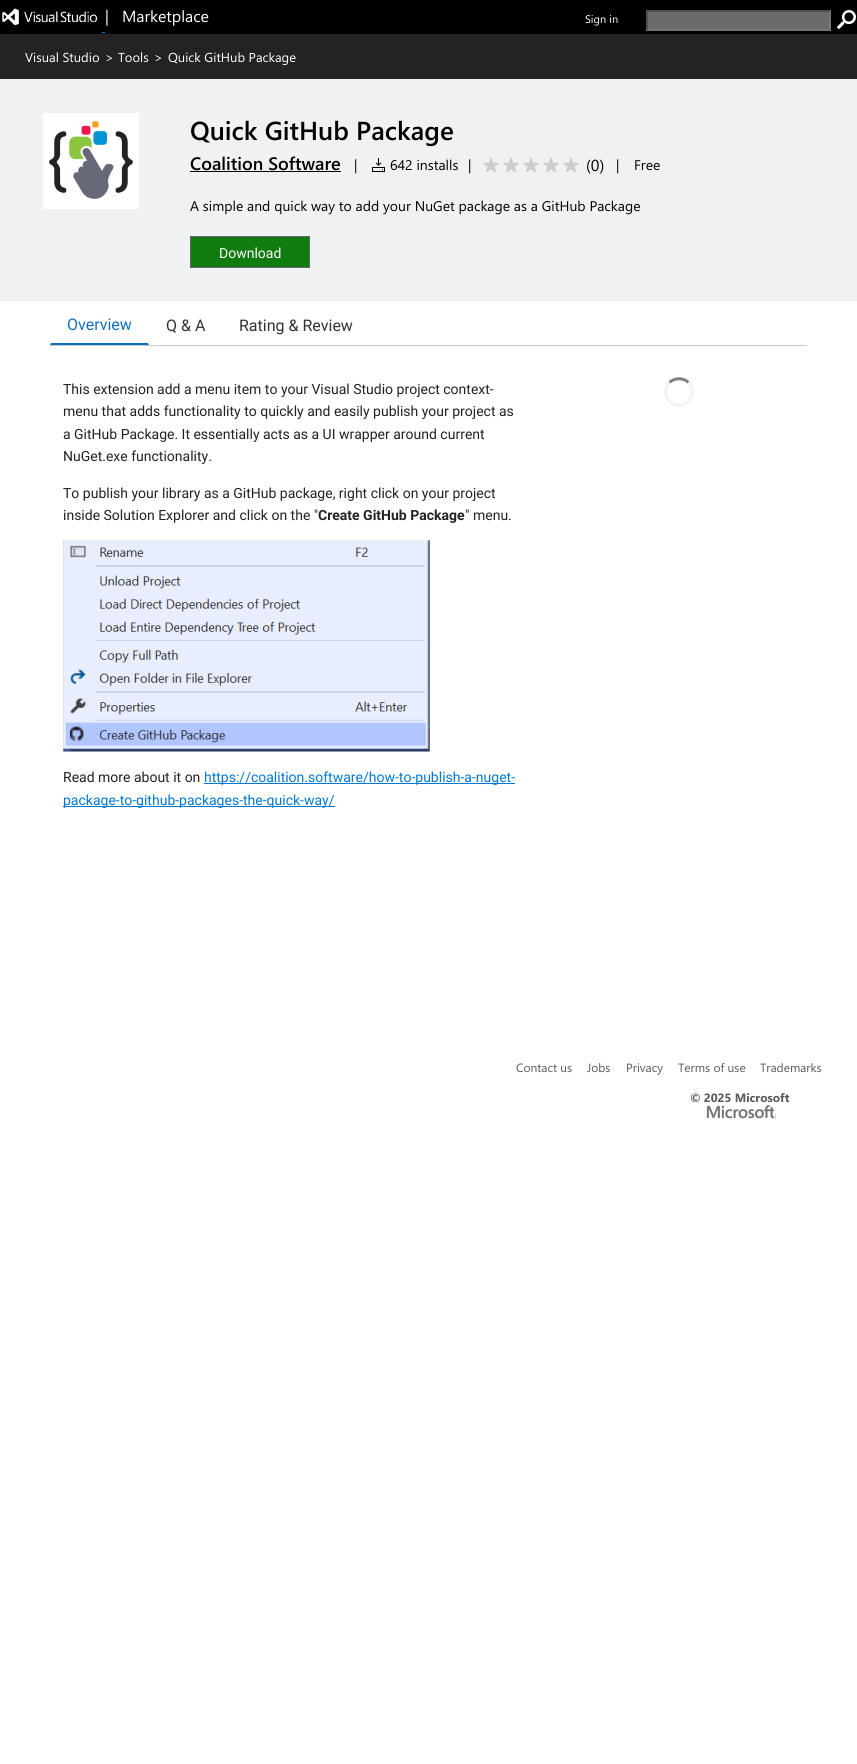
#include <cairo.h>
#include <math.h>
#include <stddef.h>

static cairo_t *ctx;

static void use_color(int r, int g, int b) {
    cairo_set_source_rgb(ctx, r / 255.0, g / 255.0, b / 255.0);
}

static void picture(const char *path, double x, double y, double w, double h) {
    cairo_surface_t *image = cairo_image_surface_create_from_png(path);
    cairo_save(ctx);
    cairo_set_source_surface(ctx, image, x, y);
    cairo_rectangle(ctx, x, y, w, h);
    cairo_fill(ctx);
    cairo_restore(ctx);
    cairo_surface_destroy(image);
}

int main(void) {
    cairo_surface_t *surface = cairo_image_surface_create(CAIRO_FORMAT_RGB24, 857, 1764);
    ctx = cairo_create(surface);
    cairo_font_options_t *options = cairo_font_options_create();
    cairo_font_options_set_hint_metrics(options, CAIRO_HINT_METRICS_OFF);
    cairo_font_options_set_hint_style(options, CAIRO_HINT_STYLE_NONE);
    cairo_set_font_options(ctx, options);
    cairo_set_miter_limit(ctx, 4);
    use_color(255, 255, 255);
    cairo_paint(ctx);
    use_color(0, 0, 0);
    cairo_rectangle(ctx, 0, 0, 857, 34);
    cairo_fill(ctx);
    picture("img1.png", 2, 8, 96, 17);
    cairo_select_font_face(ctx, "Segoe UI", CAIRO_FONT_SLANT_NORMAL, CAIRO_FONT_WEIGHT_NORMAL);
    cairo_set_font_size(ctx, 16);
    use_color(255, 255, 255);
    cairo_move_to(ctx, 105, 22);
    cairo_show_text(ctx, "|   Marketplace");
    use_color(0, 120, 212);
    cairo_rectangle(ctx, 102, 32, 3, 1);
    cairo_fill(ctx);
    cairo_set_font_size(ctx, 11);
    use_color(255, 255, 255);
    cairo_move_to(ctx, 585, 23);
    cairo_show_text(ctx, "Sign in");
    use_color(106, 106, 106);
    cairo_rectangle(ctx, 646, 10, 185, 21);
    cairo_fill(ctx);
    use_color(79, 79, 79);
    cairo_new_path(ctx);
    cairo_move_to(ctx, 646, 10);
    cairo_line_to(ctx, 831, 10);
    cairo_line_to(ctx, 829, 12);
    cairo_line_to(ctx, 648, 12);
    cairo_close_path(ctx);
    cairo_fill(ctx);
    use_color(118, 118, 118);
    cairo_new_path(ctx);
    cairo_move_to(ctx, 831, 10);
    cairo_line_to(ctx, 831, 31);
    cairo_line_to(ctx, 829, 29);
    cairo_line_to(ctx, 829, 12);
    cairo_close_path(ctx);
    cairo_fill(ctx);
    cairo_new_path(ctx);
    cairo_move_to(ctx, 831, 31);
    cairo_line_to(ctx, 646, 31);
    cairo_line_to(ctx, 648, 29);
    cairo_line_to(ctx, 829, 29);
    cairo_close_path(ctx);
    cairo_fill(ctx);
    use_color(79, 79, 79);
    cairo_new_path(ctx);
    cairo_move_to(ctx, 646, 31);
    cairo_line_to(ctx, 646, 10);
    cairo_line_to(ctx, 648, 12);
    cairo_line_to(ctx, 648, 29);
    cairo_close_path(ctx);
    cairo_fill(ctx);
    picture("img2.png", 837, 10, 19, 19);
    use_color(35, 35, 35);
    cairo_rectangle(ctx, 0, 34, 857, 45);
    cairo_fill(ctx);
    cairo_set_font_size(ctx, 13);
    use_color(255, 255, 255);
    cairo_move_to(ctx, 25, 62);
    cairo_show_text(ctx, "Visual Studio");
    cairo_move_to(ctx, 105, 62);
    cairo_show_text(ctx, ">");
    cairo_move_to(ctx, 118, 62);
    cairo_show_text(ctx, "Tools");
    cairo_move_to(ctx, 154, 62);
    cairo_show_text(ctx, ">");
    cairo_move_to(ctx, 168, 62);
    cairo_show_text(ctx, "Quick GitHub Package");
    use_color(239, 241, 243);
    cairo_rectangle(ctx, 0, 79, 857, 222);
    cairo_fill(ctx);
    picture("img3.png", 43, 113, 96, 96);
    cairo_select_font_face(ctx, "Segoe UI SemiBold", CAIRO_FONT_SLANT_NORMAL, CAIRO_FONT_WEIGHT_NORMAL);
    cairo_set_font_size(ctx, 26);
    use_color(0, 0, 0);
    cairo_move_to(ctx, 190, 140);
    cairo_show_text(ctx, "Quick GitHub Package");
    cairo_set_font_size(ctx, 18);
    cairo_move_to(ctx, 190, 170);
    cairo_show_text(ctx, "Coalition Software");
    cairo_rectangle(ctx, 190, 171, 151, 1);
    cairo_fill(ctx);
    cairo_select_font_face(ctx, "Segoe UI", CAIRO_FONT_SLANT_NORMAL, CAIRO_FONT_WEIGHT_NORMAL);
    cairo_set_font_size(ctx, 14);
    cairo_move_to(ctx, 354, 170);
    cairo_show_text(ctx, "|");
    picture("img4.png", 372, 158, 13, 14);
    cairo_move_to(ctx, 390, 170);
    cairo_show_text(ctx, "642 installs");
    cairo_move_to(ctx, 468, 170);
    cairo_show_text(ctx, "|");
    picture("img5.png", 483, 157, 16, 16);
    picture("img5.png", 503, 157, 16, 16);
    picture("img5.png", 523, 157, 16, 16);
    picture("img5.png", 543, 157, 16, 16);
    picture("img5.png", 563, 157, 16, 16);
    cairo_set_font_size(ctx, 16);
    cairo_move_to(ctx, 586, 171);
    cairo_show_text(ctx, "(0)");
    cairo_set_font_size(ctx, 14);
    cairo_move_to(ctx, 616, 170);
    cairo_show_text(ctx, "|");
    cairo_move_to(ctx, 634, 170);
    cairo_show_text(ctx, "Free");
    cairo_move_to(ctx, 190, 211);
    cairo_show_text(ctx, "A simple and quick way to add your NuGet package as a GitHub Package");
    use_color(16, 124, 16);
    cairo_rectangle(ctx, 190.5, 236.5, 119, 31);
    cairo_fill_preserve(ctx);
    use_color(102, 102, 102);
    cairo_set_line_width(ctx, 1);
    cairo_stroke(ctx);
    cairo_select_font_face(ctx, "Roboto", CAIRO_FONT_SLANT_NORMAL, CAIRO_FONT_WEIGHT_NORMAL);
    use_color(255, 255, 255);
    cairo_move_to(ctx, 219, 258);
    cairo_show_text(ctx, "Download");
    use_color(204, 204, 204);
    cairo_rectangle(ctx, 50, 345, 757, 1);
    cairo_fill(ctx);
    use_color(16, 110, 190);
    cairo_new_path(ctx);
    cairo_move_to(ctx, 149, 345);
    cairo_line_to(ctx, 50, 345);
    cairo_line_to(ctx, 51, 343);
    cairo_line_to(ctx, 148, 343);
    cairo_close_path(ctx);
    cairo_fill(ctx);
    cairo_set_font_size(ctx, 16);
    cairo_move_to(ctx, 67, 330);
    cairo_show_text(ctx, "Overview");
    use_color(51, 51, 51);
    cairo_move_to(ctx, 166, 331);
    cairo_show_text(ctx, "Q & A");
    cairo_move_to(ctx, 239, 331);
    cairo_show_text(ctx, "Rating & Review");
    cairo_set_font_size(ctx, 14);
    use_color(34, 34, 34);
    cairo_move_to(ctx, 63, 394);
    cairo_show_text(ctx, "This extension add a menu item to your Visual Studio project context-");
    cairo_move_to(ctx, 63, 416);
    cairo_show_text(ctx, "menu that adds functionality to quickly and easily publish your project as");
    cairo_move_to(ctx, 63, 439);
    cairo_show_text(ctx, "a GitHub Package. It essentially acts as a UI wrapper around current");
    cairo_move_to(ctx, 63, 461);
    cairo_show_text(ctx, "NuGet.exe functionality.");
    cairo_move_to(ctx, 63, 498);
    cairo_show_text(ctx, "To publish your library as a GitHub package, right click on your project");
    cairo_move_to(ctx, 63, 520);
    cairo_show_text(ctx, "inside Solution Explorer and click on the \"");
    cairo_select_font_face(ctx, "Roboto", CAIRO_FONT_SLANT_NORMAL, CAIRO_FONT_WEIGHT_BOLD);
    cairo_move_to(ctx, 318, 520);
    cairo_show_text(ctx, "Create GitHub Package");
    cairo_select_font_face(ctx, "Roboto", CAIRO_FONT_SLANT_NORMAL, CAIRO_FONT_WEIGHT_NORMAL);
    cairo_move_to(ctx, 465, 520);
    cairo_show_text(ctx, "\" menu.");
    picture("img6.png", 63, 540, 367, 212);
    cairo_move_to(ctx, 63, 782);
    cairo_show_text(ctx, "Read more about it on");
    use_color(0, 120, 212);
    cairo_rectangle(ctx, 204, 783, 311, 1);
    cairo_fill(ctx);
    cairo_move_to(ctx, 204, 782);
    cairo_show_text(ctx, "https://coalition.software/how-to-publish-a-nuget-");
    cairo_rectangle(ctx, 63, 806, 272, 1);
    cairo_fill(ctx);
    cairo_move_to(ctx, 63, 805);
    cairo_show_text(ctx, "package-to-github-packages-the-quick-way/");
    cairo_new_path(ctx);
    cairo_move_to(ctx, 669.5, 382.5);
    cairo_curve_to(ctx, 674.5, 377.5, 683.5, 377.5, 688.5, 382.5);
    use_color(128, 128, 128);
    cairo_set_line_width(ctx, 3);
    cairo_stroke(ctx);
    cairo_new_path(ctx);
    cairo_move_to(ctx, 688.5, 382.5);
    cairo_curve_to(ctx, 691.5, 385.5, 693, 390.5, 692, 394.5);
    cairo_curve_to(ctx, 689, 410.5, 665.5, 408, 665.5, 392);
    cairo_curve_to(ctx, 665.5, 388.5, 667, 385, 669.5, 382.5);
    use_color(243, 243, 243);
    cairo_stroke(ctx);
    cairo_select_font_face(ctx, "Segoe UI", CAIRO_FONT_SLANT_NORMAL, CAIRO_FONT_WEIGHT_NORMAL);
    cairo_set_font_size(ctx, 12);
    use_color(89, 89, 88);
    cairo_move_to(ctx, 516, 1072);
    cairo_show_text(ctx, "Contact us");
    cairo_move_to(ctx, 587, 1072);
    cairo_show_text(ctx, "Jobs");
    cairo_move_to(ctx, 626, 1072);
    cairo_show_text(ctx, "Privacy");
    cairo_move_to(ctx, 678, 1072);
    cairo_show_text(ctx, "Terms of use");
    cairo_move_to(ctx, 760, 1072);
    cairo_show_text(ctx, "Trademarks");
    cairo_select_font_face(ctx, "Segoe UI", CAIRO_FONT_SLANT_NORMAL, CAIRO_FONT_WEIGHT_BOLD);
    cairo_move_to(ctx, 690, 1102);
    cairo_show_text(ctx, "© 2025 Microsoft");
    picture("img7.png", 706, 1105, 70, 14);
    cairo_surface_write_to_png(surface, "result.png");
    cairo_font_options_destroy(options);
    cairo_destroy(ctx);
    cairo_surface_destroy(surface);
    return 0;
}
